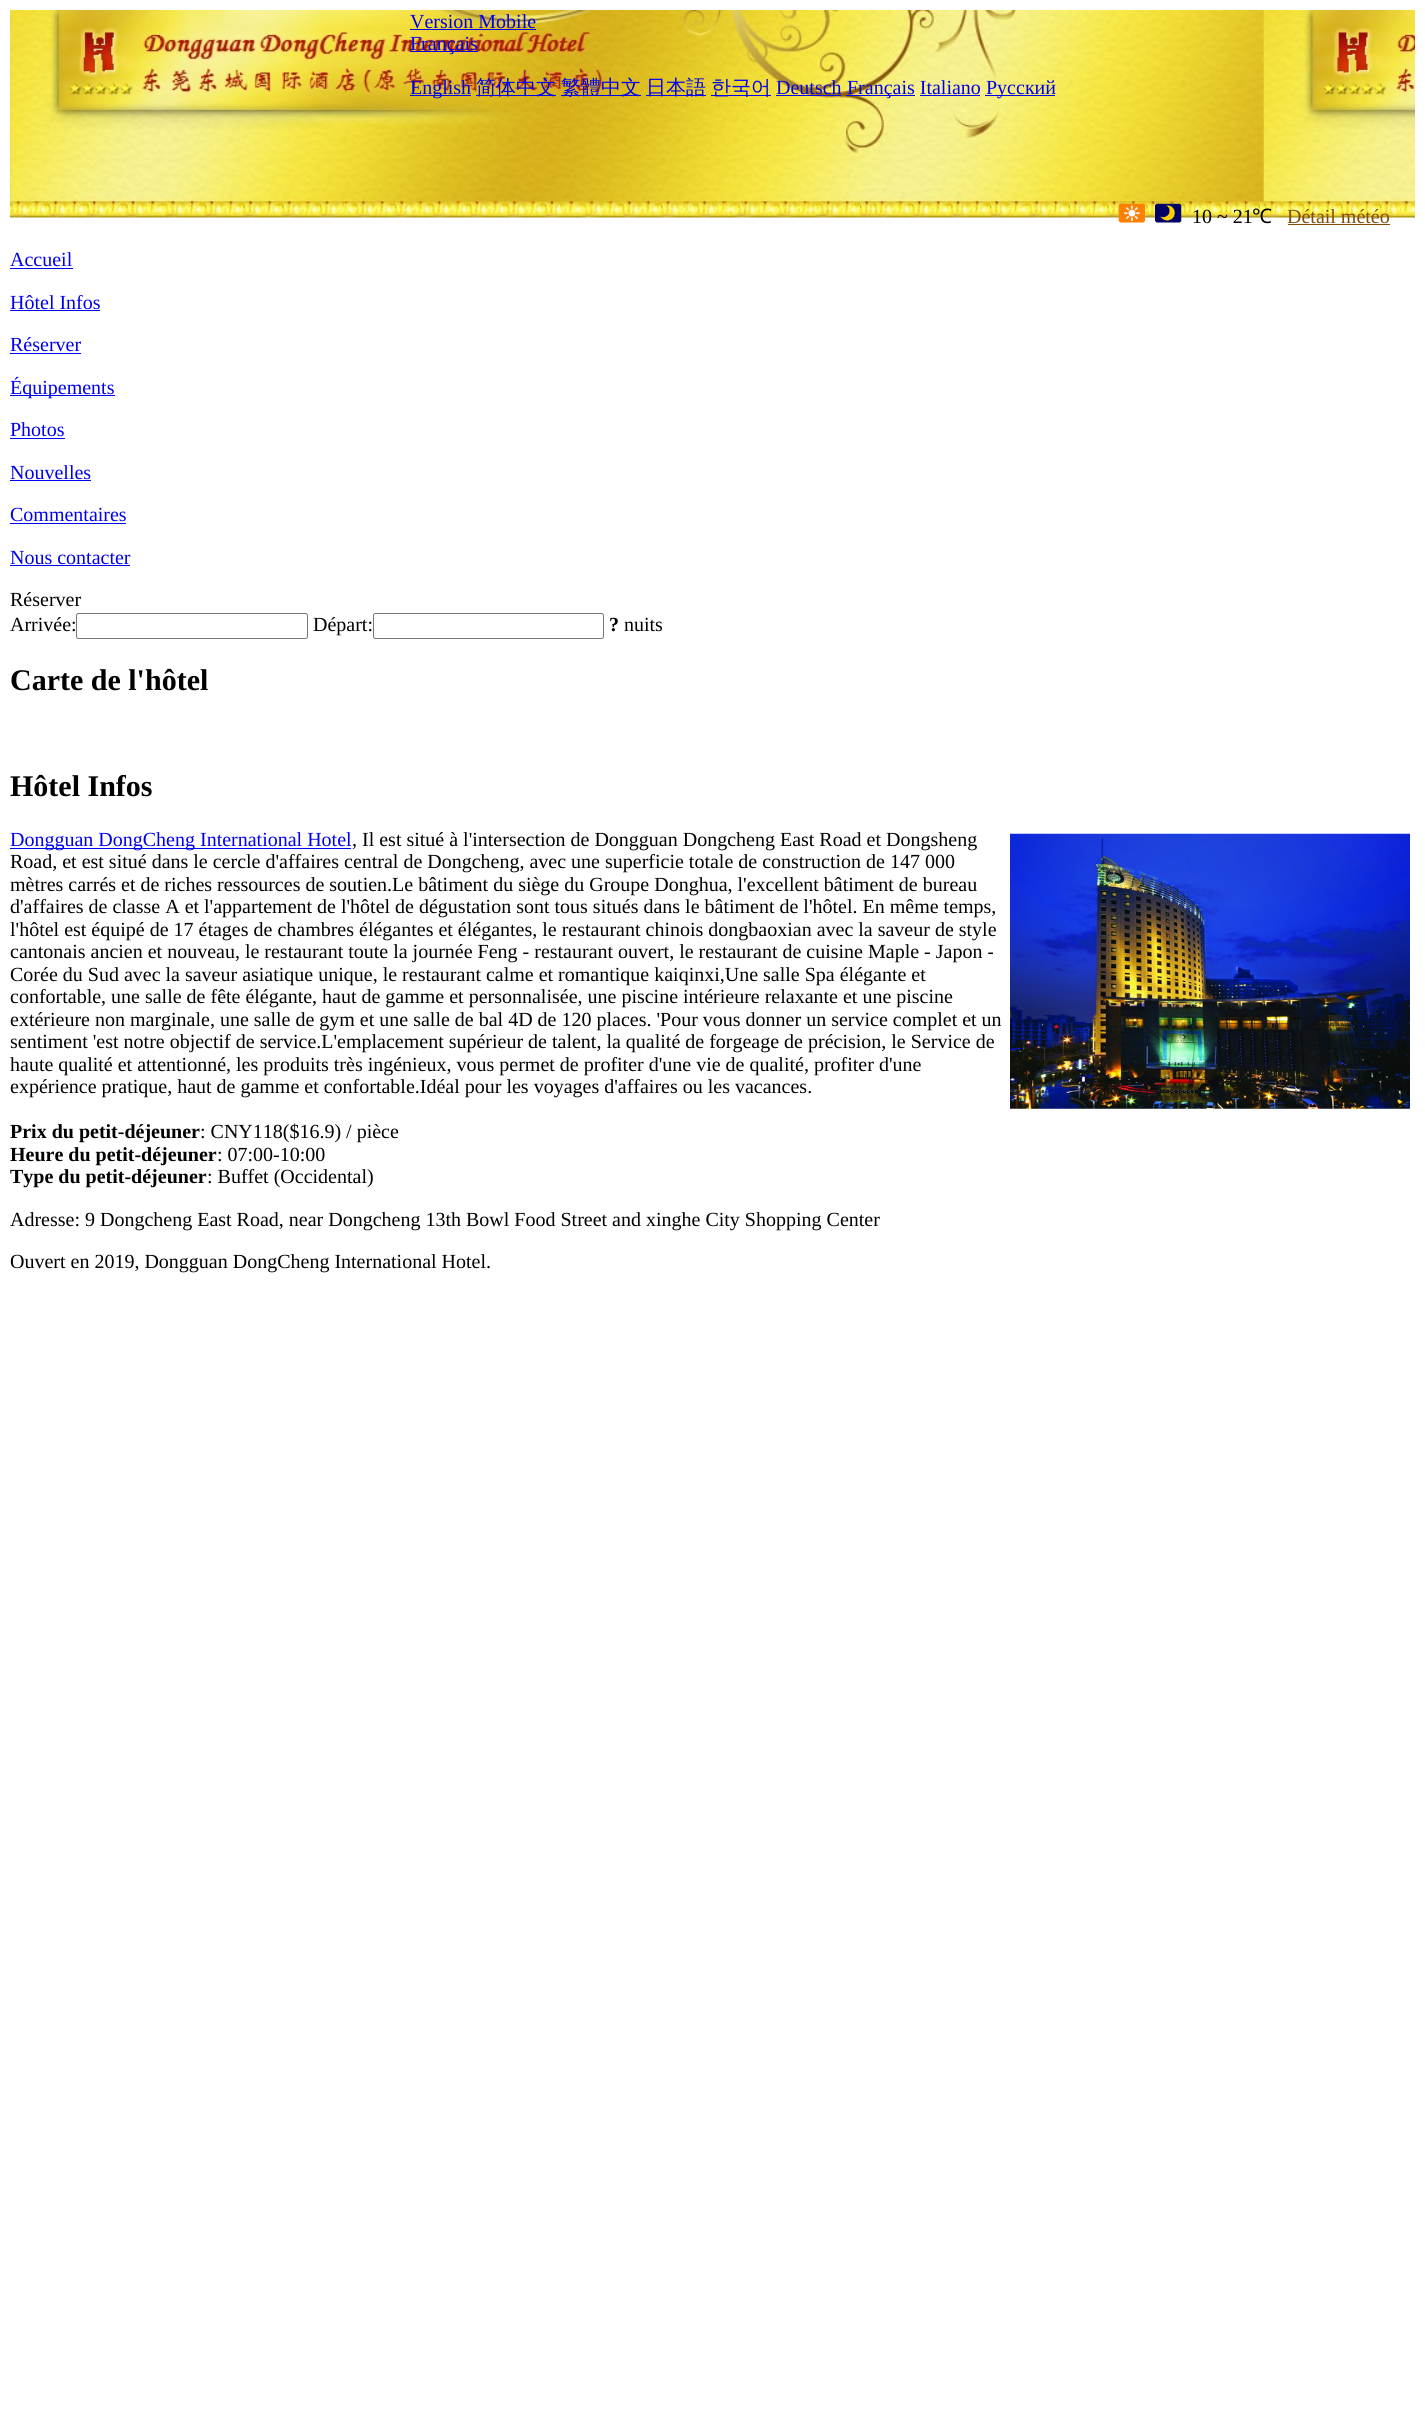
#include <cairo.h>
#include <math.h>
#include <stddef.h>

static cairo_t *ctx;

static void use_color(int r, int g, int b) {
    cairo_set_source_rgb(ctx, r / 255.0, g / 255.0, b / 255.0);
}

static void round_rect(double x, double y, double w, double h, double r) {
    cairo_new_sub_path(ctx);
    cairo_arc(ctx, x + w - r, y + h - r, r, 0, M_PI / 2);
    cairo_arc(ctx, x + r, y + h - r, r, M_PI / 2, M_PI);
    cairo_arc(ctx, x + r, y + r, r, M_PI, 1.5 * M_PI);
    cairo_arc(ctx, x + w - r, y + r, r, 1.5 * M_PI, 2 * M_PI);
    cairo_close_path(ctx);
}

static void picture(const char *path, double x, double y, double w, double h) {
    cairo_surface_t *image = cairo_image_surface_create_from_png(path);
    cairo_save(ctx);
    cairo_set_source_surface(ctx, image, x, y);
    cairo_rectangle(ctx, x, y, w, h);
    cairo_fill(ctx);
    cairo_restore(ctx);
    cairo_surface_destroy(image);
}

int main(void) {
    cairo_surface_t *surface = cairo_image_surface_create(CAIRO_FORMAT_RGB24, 1425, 2428);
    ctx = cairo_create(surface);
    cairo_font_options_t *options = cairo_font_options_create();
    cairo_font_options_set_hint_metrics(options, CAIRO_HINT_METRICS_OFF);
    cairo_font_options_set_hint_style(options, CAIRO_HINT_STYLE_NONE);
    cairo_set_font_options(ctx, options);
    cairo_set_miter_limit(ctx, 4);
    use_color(255, 255, 255);
    cairo_paint(ctx);
    picture("img1.png", 10, 10, 1405, 208);
    cairo_select_font_face(ctx, "Liberation Serif", CAIRO_FONT_SLANT_NORMAL, CAIRO_FONT_WEIGHT_NORMAL);
    cairo_set_font_size(ctx, 20);
    use_color(0, 0, 238);
    cairo_move_to(ctx, 410, 28);
    cairo_show_text(ctx, "Version Mobile");
    cairo_rectangle(ctx, 410, 29, 126, 1);
    cairo_fill(ctx);
    cairo_rectangle(ctx, 410, 51, 68, 1);
    cairo_fill(ctx);
    cairo_move_to(ctx, 410, 50);
    cairo_show_text(ctx, "Français");
    cairo_rectangle(ctx, 410, 95, 61, 1);
    cairo_fill(ctx);
    cairo_move_to(ctx, 410, 94);
    cairo_show_text(ctx, "English");
    cairo_rectangle(ctx, 476, 95, 80, 1);
    cairo_fill(ctx);
    cairo_select_font_face(ctx, "WenQuanYi Zen Hei Medium", CAIRO_FONT_SLANT_NORMAL, CAIRO_FONT_WEIGHT_NORMAL);
    cairo_move_to(ctx, 476, 94);
    cairo_show_text(ctx, "简体中文");
    cairo_rectangle(ctx, 561, 95, 80, 1);
    cairo_fill(ctx);
    cairo_move_to(ctx, 561, 94);
    cairo_show_text(ctx, "繁體中文");
    cairo_rectangle(ctx, 646, 95, 60, 1);
    cairo_fill(ctx);
    cairo_move_to(ctx, 646, 94);
    cairo_show_text(ctx, "日本語");
    cairo_rectangle(ctx, 711, 95, 60, 1);
    cairo_fill(ctx);
    cairo_move_to(ctx, 711, 94);
    cairo_show_text(ctx, "한국어");
    cairo_select_font_face(ctx, "Liberation Serif", CAIRO_FONT_SLANT_NORMAL, CAIRO_FONT_WEIGHT_NORMAL);
    cairo_move_to(ctx, 776, 94);
    cairo_show_text(ctx, "Deutsch");
    cairo_rectangle(ctx, 776, 95, 65, 1);
    cairo_fill(ctx);
    cairo_rectangle(ctx, 846, 95, 69, 1);
    cairo_fill(ctx);
    cairo_move_to(ctx, 847, 94);
    cairo_show_text(ctx, "Français Italiano");
    cairo_rectangle(ctx, 985, 95, 70, 1);
    cairo_fill(ctx);
    cairo_move_to(ctx, 986, 94);
    cairo_show_text(ctx, "Русский");
    cairo_rectangle(ctx, 920, 95, 60, 1);
    cairo_fill(ctx);
    picture("img2.png", 1118, 203, 27, 20);
    picture("img3.png", 1155, 203, 27, 20);
    use_color(0, 0, 0);
    cairo_move_to(ctx, 1192, 223);
    cairo_show_text(ctx, "10 ~ 21");
    cairo_select_font_face(ctx, "Noto Sans", CAIRO_FONT_SLANT_NORMAL, CAIRO_FONT_WEIGHT_NORMAL);
    cairo_move_to(ctx, 1252, 223);
    cairo_show_text(ctx, "℃");
    cairo_select_font_face(ctx, "Liberation Serif", CAIRO_FONT_SLANT_NORMAL, CAIRO_FONT_WEIGHT_NORMAL);
    use_color(132, 75, 11);
    cairo_move_to(ctx, 1287, 223);
    cairo_show_text(ctx, "Détail météo");
    cairo_rectangle(ctx, 1288, 224, 102, 1);
    cairo_fill(ctx);
    use_color(0, 0, 238);
    cairo_move_to(ctx, 10, 266);
    cairo_show_text(ctx, "Accueil");
    cairo_rectangle(ctx, 10, 268, 63, 1);
    cairo_fill(ctx);
    cairo_move_to(ctx, 10, 309);
    cairo_show_text(ctx, "Hôtel Infos");
    cairo_rectangle(ctx, 10, 310, 90, 1);
    cairo_fill(ctx);
    cairo_move_to(ctx, 10, 351);
    cairo_show_text(ctx, "Réserver");
    cairo_rectangle(ctx, 10, 353, 71, 1);
    cairo_fill(ctx);
    cairo_rectangle(ctx, 10, 395, 105, 1);
    cairo_fill(ctx);
    cairo_move_to(ctx, 10, 394);
    cairo_show_text(ctx, "Équipements");
    cairo_move_to(ctx, 10, 436);
    cairo_show_text(ctx, "Photos");
    cairo_rectangle(ctx, 10, 438, 55, 1);
    cairo_fill(ctx);
    cairo_move_to(ctx, 10, 479);
    cairo_show_text(ctx, "Nouvelles");
    cairo_rectangle(ctx, 10, 480, 81, 1);
    cairo_fill(ctx);
    cairo_move_to(ctx, 10, 521);
    cairo_show_text(ctx, "Commentaires");
    cairo_rectangle(ctx, 10, 523, 116, 1);
    cairo_fill(ctx);
    cairo_move_to(ctx, 10, 564);
    cairo_show_text(ctx, "Nous contacter");
    cairo_rectangle(ctx, 10, 565, 120, 1);
    cairo_fill(ctx);
    use_color(0, 0, 0);
    cairo_move_to(ctx, 10, 606);
    cairo_show_text(ctx, "Réserver");
    cairo_move_to(ctx, 10, 631);
    cairo_show_text(ctx, "Arrivée:");
    round_rect(76.5, 613.5, 231, 25, 2);
    use_color(118, 118, 118);
    cairo_set_line_width(ctx, 1);
    cairo_stroke(ctx);
    use_color(0, 0, 0);
    cairo_move_to(ctx, 313, 631);
    cairo_show_text(ctx, "Départ:");
    round_rect(373.5, 613.5, 230, 25, 2);
    use_color(118, 118, 118);
    cairo_stroke(ctx);
    cairo_select_font_face(ctx, "Liberation Serif", CAIRO_FONT_SLANT_NORMAL, CAIRO_FONT_WEIGHT_BOLD);
    use_color(0, 0, 0);
    cairo_move_to(ctx, 609, 631);
    cairo_show_text(ctx, "?");
    cairo_select_font_face(ctx, "Liberation Serif", CAIRO_FONT_SLANT_NORMAL, CAIRO_FONT_WEIGHT_NORMAL);
    cairo_move_to(ctx, 624, 631);
    cairo_show_text(ctx, "nuits");
    cairo_select_font_face(ctx, "Liberation Serif", CAIRO_FONT_SLANT_NORMAL, CAIRO_FONT_WEIGHT_BOLD);
    cairo_set_font_size(ctx, 30);
    cairo_move_to(ctx, 10, 690);
    cairo_show_text(ctx, "Carte de l'hôtel");
    cairo_move_to(ctx, 10, 796);
    cairo_show_text(ctx, "Hôtel Infos");
    use_color(0, 0, 238);
    cairo_rectangle(ctx, 10, 848, 341, 1);
    cairo_fill(ctx);
    cairo_select_font_face(ctx, "Liberation Serif", CAIRO_FONT_SLANT_NORMAL, CAIRO_FONT_WEIGHT_NORMAL);
    cairo_set_font_size(ctx, 20);
    cairo_move_to(ctx, 10, 846);
    cairo_show_text(ctx, "Dongguan DongCheng International Hotel");
    use_color(0, 0, 0);
    cairo_move_to(ctx, 352, 846);
    cairo_show_text(ctx, ", Il est situé à l'intersection de Dongguan Dongcheng East Road et Dongsheng");
    picture("img4.png", 1010, 833, 400, 276);
    cairo_move_to(ctx, 10, 868);
    cairo_show_text(ctx, "Road, et est situé dans le cercle d'affaires central de Dongcheng, avec une superficie totale de construction de 147 000");
    cairo_move_to(ctx, 10, 891);
    cairo_show_text(ctx, "mètres carrés et de riches ressources de soutien.Le bâtiment du siège du Groupe Donghua, l'excellent bâtiment de bureau");
    cairo_move_to(ctx, 10, 913);
    cairo_show_text(ctx, "d'affaires de classe A et l'appartement de l'hôtel de dégustation sont tous situés dans le bâtiment de l'hôtel. En même temps,");
    cairo_move_to(ctx, 10, 936);
    cairo_show_text(ctx, "l'hôtel est équipé de 17 étages de chambres élégantes et élégantes, le restaurant chinois dongbaoxian avec la saveur de style");
    cairo_move_to(ctx, 10, 958);
    cairo_show_text(ctx, "cantonais ancien et nouveau, le restaurant toute la journée Feng - restaurant ouvert, le restaurant de cuisine Maple - Japon -");
    cairo_move_to(ctx, 10, 981);
    cairo_show_text(ctx, "Corée du Sud avec la saveur asiatique unique, le restaurant calme et romantique kaiqinxi,Une salle Spa élégante et");
    cairo_move_to(ctx, 10, 1003);
    cairo_show_text(ctx, "confortable, une salle de fête élégante, haut de gamme et personnalisée, une piscine intérieure relaxante et une piscine");
    cairo_move_to(ctx, 10, 1026);
    cairo_show_text(ctx, "extérieure non marginale, une salle de gym et une salle de bal 4D de 120 places. 'Pour vous donner un service complet et un");
    cairo_move_to(ctx, 10, 1048);
    cairo_show_text(ctx, "sentiment 'est notre objectif de service.L'emplacement supérieur de talent, la qualité de forgeage de précision, le Service de");
    cairo_move_to(ctx, 10, 1071);
    cairo_show_text(ctx, "haute qualité et attentionné, les produits très ingénieux, vous permet de profiter d'une vie de qualité, profiter d'une");
    cairo_move_to(ctx, 10, 1093);
    cairo_show_text(ctx, "expérience pratique, haut de gamme et confortable.Idéal pour les voyages d'affaires ou les vacances.");
    cairo_select_font_face(ctx, "Liberation Serif", CAIRO_FONT_SLANT_NORMAL, CAIRO_FONT_WEIGHT_BOLD);
    cairo_move_to(ctx, 10, 1138);
    cairo_show_text(ctx, "Prix du petit-déjeuner");
    cairo_select_font_face(ctx, "Liberation Serif", CAIRO_FONT_SLANT_NORMAL, CAIRO_FONT_WEIGHT_NORMAL);
    cairo_move_to(ctx, 200, 1138);
    cairo_show_text(ctx, ": CNY118($16.9) / pièce");
    cairo_select_font_face(ctx, "Liberation Serif", CAIRO_FONT_SLANT_NORMAL, CAIRO_FONT_WEIGHT_BOLD);
    cairo_move_to(ctx, 10, 1161);
    cairo_show_text(ctx, "Heure du petit-déjeuner");
    cairo_select_font_face(ctx, "Liberation Serif", CAIRO_FONT_SLANT_NORMAL, CAIRO_FONT_WEIGHT_NORMAL);
    cairo_move_to(ctx, 217, 1161);
    cairo_show_text(ctx, ": 07:00-10:00");
    cairo_select_font_face(ctx, "Liberation Serif", CAIRO_FONT_SLANT_NORMAL, CAIRO_FONT_WEIGHT_BOLD);
    cairo_move_to(ctx, 10, 1183);
    cairo_show_text(ctx, "Type du petit-déjeuner");
    cairo_select_font_face(ctx, "Liberation Serif", CAIRO_FONT_SLANT_NORMAL, CAIRO_FONT_WEIGHT_NORMAL);
    cairo_move_to(ctx, 207, 1183);
    cairo_show_text(ctx, ": Buffet (Occidental)");
    cairo_move_to(ctx, 10, 1226);
    cairo_show_text(ctx, "Adresse: 9 Dongcheng East Road, near Dongcheng 13th Bowl Food Street and xinghe City Shopping Center");
    cairo_move_to(ctx, 10, 1268);
    cairo_show_text(ctx, "Ouvert en 2019, Dongguan DongCheng International Hotel.");
    cairo_surface_write_to_png(surface, "result.png");
    cairo_font_options_destroy(options);
    cairo_destroy(ctx);
    cairo_surface_destroy(surface);
    return 0;
}
